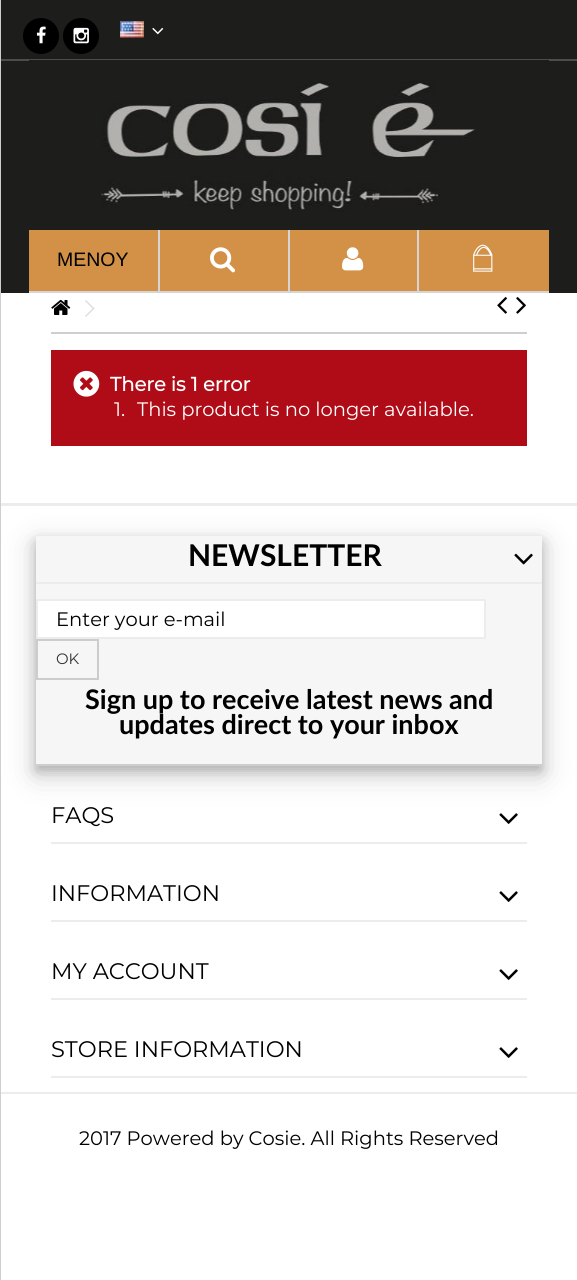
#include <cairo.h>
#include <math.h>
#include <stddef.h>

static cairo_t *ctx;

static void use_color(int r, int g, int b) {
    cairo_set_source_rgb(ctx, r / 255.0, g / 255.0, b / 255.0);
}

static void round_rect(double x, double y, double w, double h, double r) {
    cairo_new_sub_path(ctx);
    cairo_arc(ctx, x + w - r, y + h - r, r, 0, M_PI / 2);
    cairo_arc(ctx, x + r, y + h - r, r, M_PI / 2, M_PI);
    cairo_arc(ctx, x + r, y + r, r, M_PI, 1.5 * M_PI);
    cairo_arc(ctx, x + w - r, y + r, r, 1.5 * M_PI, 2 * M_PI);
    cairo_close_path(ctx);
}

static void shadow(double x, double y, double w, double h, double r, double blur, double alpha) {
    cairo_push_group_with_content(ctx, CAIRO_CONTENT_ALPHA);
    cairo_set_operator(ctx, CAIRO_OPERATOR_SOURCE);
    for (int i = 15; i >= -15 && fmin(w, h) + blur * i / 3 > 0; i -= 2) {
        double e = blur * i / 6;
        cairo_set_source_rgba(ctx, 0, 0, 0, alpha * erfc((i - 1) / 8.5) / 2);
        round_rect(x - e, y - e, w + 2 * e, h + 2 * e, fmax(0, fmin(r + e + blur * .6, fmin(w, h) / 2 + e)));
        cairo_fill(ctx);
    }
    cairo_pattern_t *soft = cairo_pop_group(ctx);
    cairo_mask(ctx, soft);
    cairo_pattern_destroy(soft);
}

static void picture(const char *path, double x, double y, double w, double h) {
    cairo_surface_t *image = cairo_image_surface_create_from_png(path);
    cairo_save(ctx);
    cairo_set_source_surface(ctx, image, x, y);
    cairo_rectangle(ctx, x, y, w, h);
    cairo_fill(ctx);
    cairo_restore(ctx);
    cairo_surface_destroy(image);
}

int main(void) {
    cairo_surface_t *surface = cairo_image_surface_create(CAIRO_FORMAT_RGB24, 577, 1280);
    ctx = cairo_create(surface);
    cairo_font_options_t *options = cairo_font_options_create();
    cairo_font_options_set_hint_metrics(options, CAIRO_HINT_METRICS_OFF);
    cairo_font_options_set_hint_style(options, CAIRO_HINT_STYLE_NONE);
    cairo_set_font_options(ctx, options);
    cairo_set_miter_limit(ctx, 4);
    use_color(255, 255, 255);
    cairo_paint(ctx);
    use_color(29, 29, 27);
    cairo_rectangle(ctx, 1, 0, 576, 293);
    cairo_fill(ctx);
    use_color(77, 77, 77);
    cairo_rectangle(ctx, 0, 59, 577, 2);
    cairo_fill(ctx);
    use_color(236, 236, 236);
    cairo_rectangle(ctx, 0, 503, 577, 3);
    cairo_fill(ctx);
    cairo_rectangle(ctx, 0, 1092, 577, 2);
    cairo_fill(ctx);
    use_color(0, 0, 0);
    shadow(36, 545, 506, 229, 0, 15, 0.19);
    use_color(206, 206, 206);
    cairo_rectangle(ctx, 0, 0, 1, 1280);
    cairo_fill(ctx);
    use_color(0, 0, 0);
    cairo_arc(ctx, 41, 36, 18, 0, 2 * M_PI);
    cairo_fill(ctx);
    picture("img1.png", 36, 26, 10, 18);
    cairo_arc(ctx, 81, 36, 18, 0, 2 * M_PI);
    cairo_fill(ctx);
    picture("img2.png", 73, 27, 16, 17);
    picture("img3.png", 120, 21, 24, 17);
    picture("img4.png", 152, 27, 12, 8);
    use_color(214, 212, 212);
    cairo_rectangle(ctx, 29, 291, 520, 2);
    cairo_fill(ctx);
    use_color(29, 29, 27);
    cairo_rectangle(ctx, 29, 60, 520, 1);
    cairo_fill(ctx);
    picture("img5.png", 101, 81, 375, 131);
    use_color(210, 145, 71);
    cairo_rectangle(ctx, 29, 230, 520, 61);
    cairo_fill(ctx);
    use_color(214, 212, 212);
    cairo_rectangle(ctx, 158, 230, 2, 61);
    cairo_fill(ctx);
    cairo_select_font_face(ctx, "Liberation Sans", CAIRO_FONT_SLANT_NORMAL, CAIRO_FONT_WEIGHT_NORMAL);
    cairo_set_font_size(ctx, 19.5);
    use_color(0, 0, 0);
    cairo_move_to(ctx, 57, 266);
    cairo_show_text(ctx, "ΜΕΝΟΥ");
    use_color(214, 212, 212);
    cairo_rectangle(ctx, 288, 230, 2, 61);
    cairo_fill(ctx);
    picture("img6.png", 210, 247, 26, 26);
    cairo_rectangle(ctx, 417, 230, 2, 61);
    cairo_fill(ctx);
    picture("img7.png", 342, 247, 22, 24);
    picture("img8.png", 473, 244, 20, 28);
    use_color(206, 206, 206);
    cairo_rectangle(ctx, 51, 332, 476, 2);
    cairo_fill(ctx);
    picture("img9.png", 51, 300, 20, 15);
    use_color(221, 221, 221);
    cairo_new_path(ctx);
    cairo_move_to(ctx, 86, 300);
    cairo_line_to(ctx, 94.5, 308.5);
    cairo_line_to(ctx, 93.5, 309.5);
    cairo_line_to(ctx, 85, 301);
    cairo_close_path(ctx);
    cairo_fill(ctx);
    cairo_new_path(ctx);
    cairo_move_to(ctx, 93.5, 307.5);
    cairo_line_to(ctx, 94.5, 308.5);
    cairo_line_to(ctx, 86, 317);
    cairo_line_to(ctx, 85, 316);
    cairo_close_path(ctx);
    cairo_fill(ctx);
    picture("img10.png", 497, 297, 10, 17);
    picture("img11.png", 516, 297, 10, 17);
    use_color(176, 12, 23);
    cairo_rectangle(ctx, 51, 350, 476, 96);
    cairo_fill(ctx);
    picture("img12.png", 73, 370, 27, 27);
    cairo_select_font_face(ctx, "Montserrat", CAIRO_FONT_SLANT_NORMAL, CAIRO_FONT_WEIGHT_BOLD);
    use_color(255, 255, 255);
    cairo_move_to(ctx, 110, 391);
    cairo_show_text(ctx, "There is 1 error");
    cairo_select_font_face(ctx, "Montserrat Thin", CAIRO_FONT_SLANT_NORMAL, CAIRO_FONT_WEIGHT_NORMAL);
    cairo_move_to(ctx, 114, 416);
    cairo_show_text(ctx, "1.");
    cairo_move_to(ctx, 137, 416);
    cairo_show_text(ctx, "This product is no longer available.");
    use_color(0, 0, 0);
    shadow(36, 542, 506, 229, 0, 6, 0.2);
    use_color(246, 246, 246);
    cairo_rectangle(ctx, 36, 536, 506, 228);
    cairo_fill(ctx);
    use_color(206, 206, 206);
    cairo_rectangle(ctx, 36, 764, 506, 2);
    cairo_fill(ctx);
    use_color(236, 236, 236);
    cairo_rectangle(ctx, 36, 582, 506, 2);
    cairo_fill(ctx);
    cairo_select_font_face(ctx, "Lato", CAIRO_FONT_SLANT_NORMAL, CAIRO_FONT_WEIGHT_BOLD);
    cairo_set_font_size(ctx, 30);
    use_color(0, 0, 0);
    cairo_move_to(ctx, 188, 566);
    cairo_show_text(ctx, "NEWSLETTER");
    picture("img13.png", 514, 553, 19, 12);
    use_color(255, 255, 255);
    cairo_rectangle(ctx, 37, 600, 448, 38);
    cairo_fill_preserve(ctx);
    use_color(236, 236, 236);
    cairo_stroke(ctx);
    cairo_select_font_face(ctx, "Montserrat Thin", CAIRO_FONT_SLANT_NORMAL, CAIRO_FONT_WEIGHT_NORMAL);
    cairo_set_font_size(ctx, 19.5);
    use_color(0, 0, 0);
    cairo_move_to(ctx, 56, 626);
    cairo_show_text(ctx, "Enter your e-mail");
    cairo_rectangle(ctx, 37, 640, 61, 39);
    use_color(204, 204, 204);
    cairo_stroke(ctx);
    cairo_set_font_size(ctx, 15);
    use_color(51, 51, 51);
    cairo_move_to(ctx, 56, 664);
    cairo_show_text(ctx, "OK");
    cairo_select_font_face(ctx, "Lato", CAIRO_FONT_SLANT_NORMAL, CAIRO_FONT_WEIGHT_BOLD);
    cairo_set_font_size(ctx, 27);
    use_color(0, 0, 0);
    cairo_move_to(ctx, 85, 709);
    cairo_show_text(ctx, "Sign up to receive latest news and");
    cairo_move_to(ctx, 119, 734);
    cairo_show_text(ctx, "updates direct to your inbox");
    use_color(236, 236, 236);
    cairo_rectangle(ctx, 51, 842, 476, 2);
    cairo_fill(ctx);
    cairo_select_font_face(ctx, "Montserrat Thin", CAIRO_FONT_SLANT_NORMAL, CAIRO_FONT_WEIGHT_NORMAL);
    cairo_set_font_size(ctx, 22.5);
    use_color(0, 0, 0);
    cairo_move_to(ctx, 51, 823);
    cairo_show_text(ctx, "FAQS");
    picture("img14.png", 499, 813, 19, 11);
    use_color(236, 236, 236);
    cairo_rectangle(ctx, 51, 920, 476, 2);
    cairo_fill(ctx);
    use_color(0, 0, 0);
    cairo_move_to(ctx, 51, 901);
    cairo_show_text(ctx, "INFORMATION");
    picture("img14.png", 499, 891, 19, 11);
    use_color(236, 236, 236);
    cairo_rectangle(ctx, 51, 998, 476, 2);
    cairo_fill(ctx);
    use_color(0, 0, 0);
    cairo_move_to(ctx, 51, 979);
    cairo_show_text(ctx, "MY ACCOUNT");
    picture("img14.png", 499, 969, 19, 11);
    use_color(236, 236, 236);
    cairo_rectangle(ctx, 51, 1076, 476, 2);
    cairo_fill(ctx);
    use_color(0, 0, 0);
    cairo_move_to(ctx, 51, 1057);
    cairo_show_text(ctx, "STORE INFORMATION");
    picture("img14.png", 499, 1047, 19, 11);
    cairo_set_font_size(ctx, 19.5);
    cairo_move_to(ctx, 79, 1145);
    cairo_show_text(ctx, "2017 Powered by Cosie. All Rights Reserved");
    cairo_surface_write_to_png(surface, "result.png");
    cairo_font_options_destroy(options);
    cairo_destroy(ctx);
    cairo_surface_destroy(surface);
    return 0;
}
